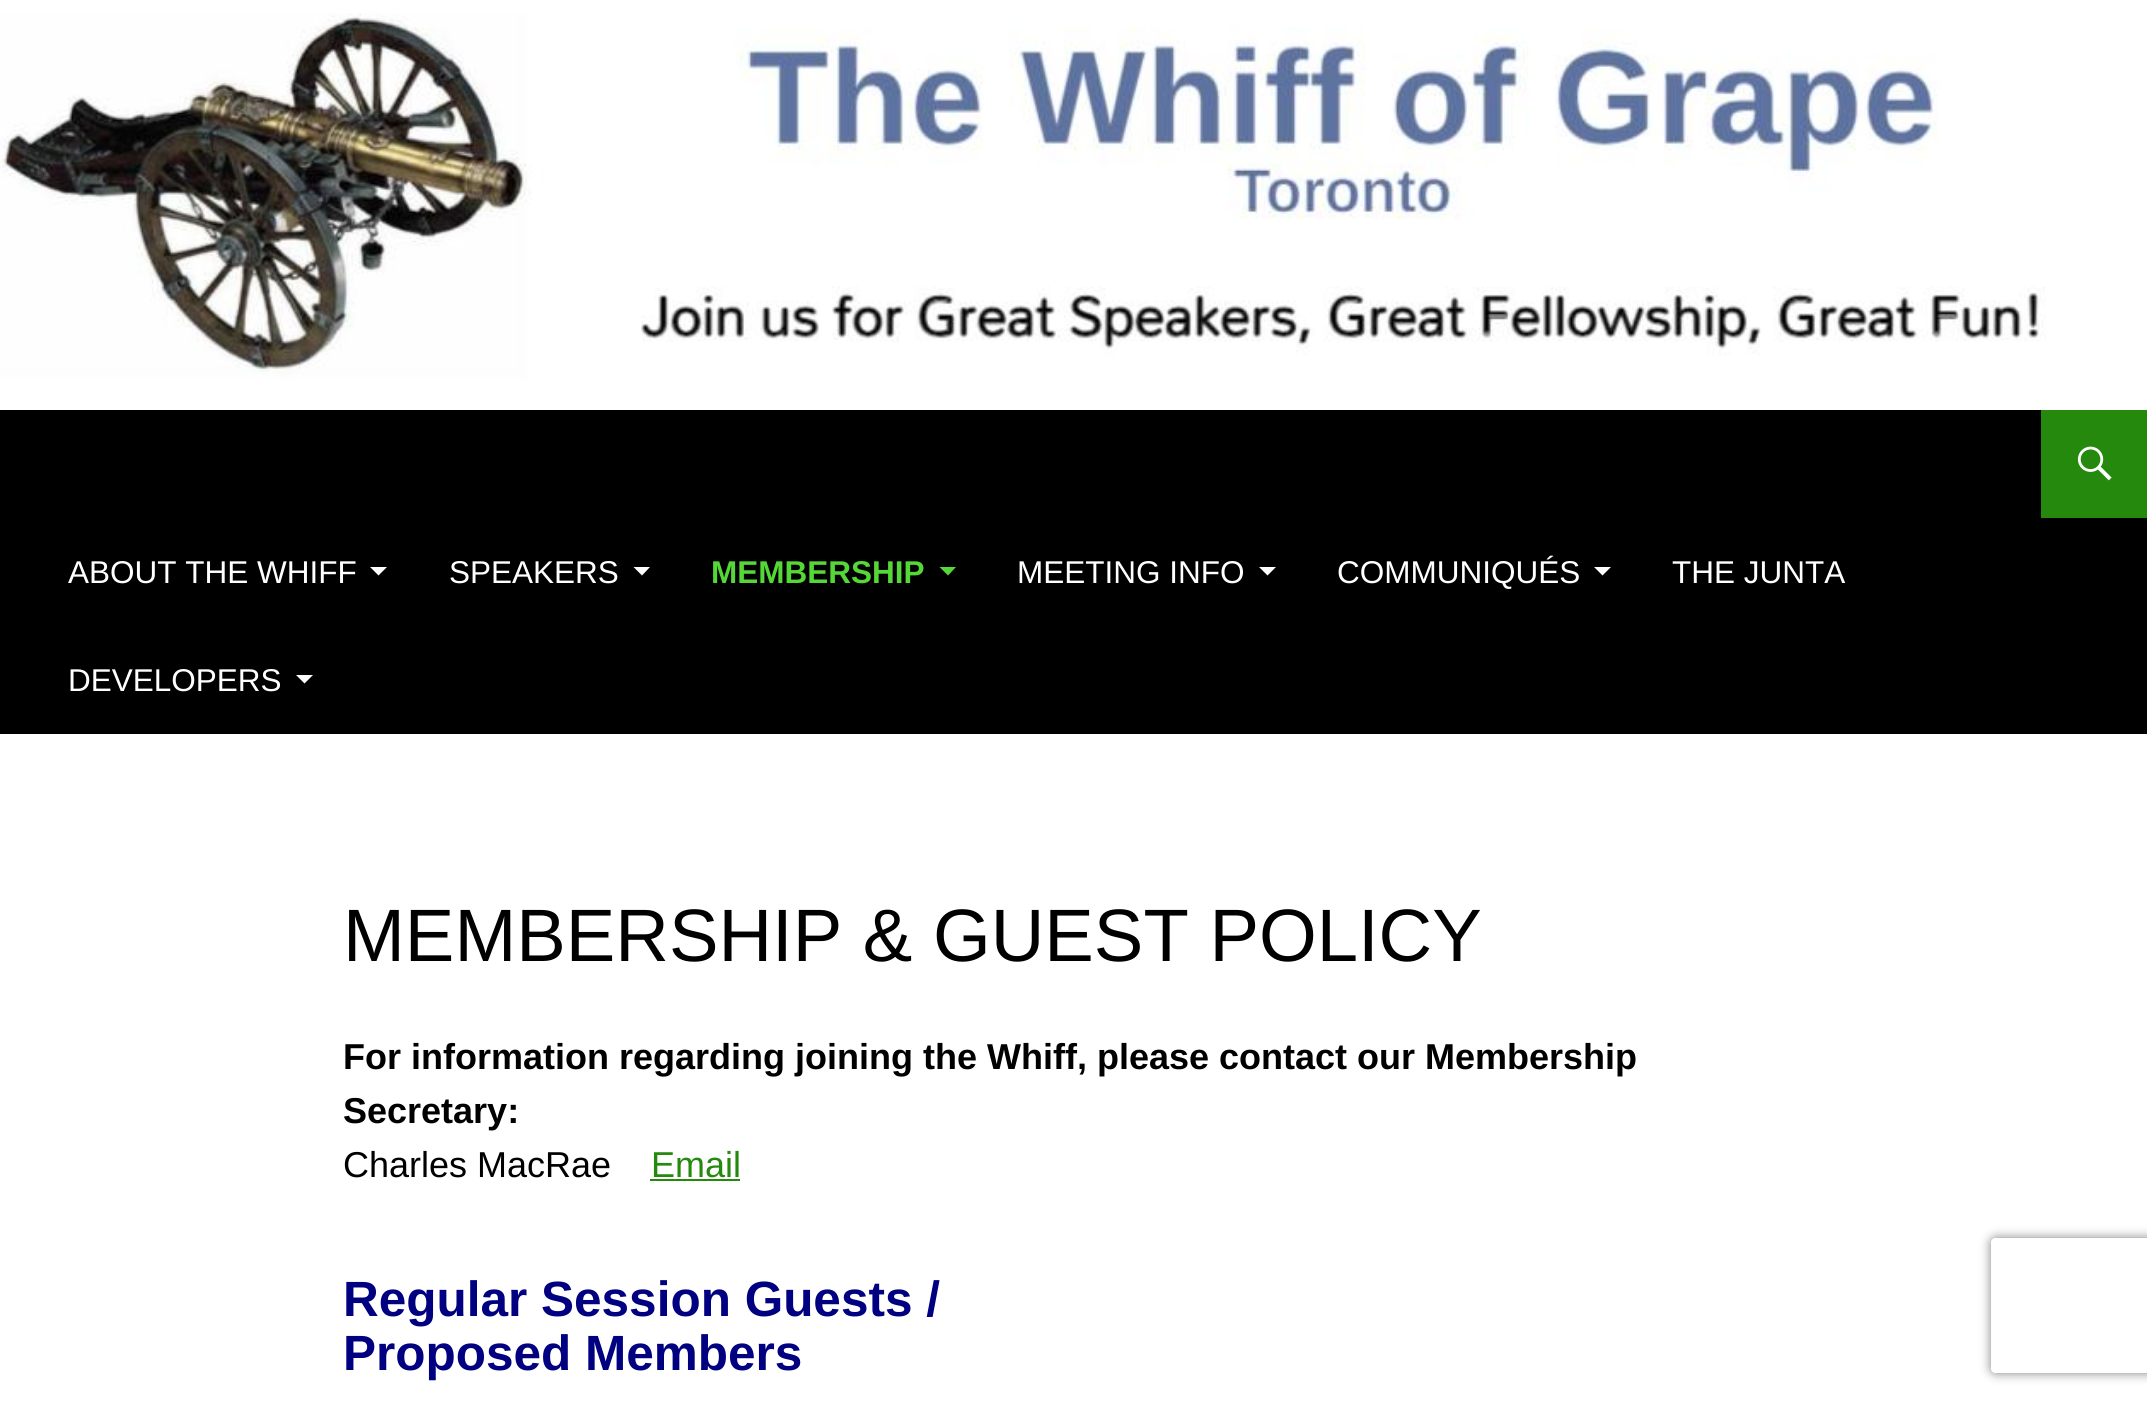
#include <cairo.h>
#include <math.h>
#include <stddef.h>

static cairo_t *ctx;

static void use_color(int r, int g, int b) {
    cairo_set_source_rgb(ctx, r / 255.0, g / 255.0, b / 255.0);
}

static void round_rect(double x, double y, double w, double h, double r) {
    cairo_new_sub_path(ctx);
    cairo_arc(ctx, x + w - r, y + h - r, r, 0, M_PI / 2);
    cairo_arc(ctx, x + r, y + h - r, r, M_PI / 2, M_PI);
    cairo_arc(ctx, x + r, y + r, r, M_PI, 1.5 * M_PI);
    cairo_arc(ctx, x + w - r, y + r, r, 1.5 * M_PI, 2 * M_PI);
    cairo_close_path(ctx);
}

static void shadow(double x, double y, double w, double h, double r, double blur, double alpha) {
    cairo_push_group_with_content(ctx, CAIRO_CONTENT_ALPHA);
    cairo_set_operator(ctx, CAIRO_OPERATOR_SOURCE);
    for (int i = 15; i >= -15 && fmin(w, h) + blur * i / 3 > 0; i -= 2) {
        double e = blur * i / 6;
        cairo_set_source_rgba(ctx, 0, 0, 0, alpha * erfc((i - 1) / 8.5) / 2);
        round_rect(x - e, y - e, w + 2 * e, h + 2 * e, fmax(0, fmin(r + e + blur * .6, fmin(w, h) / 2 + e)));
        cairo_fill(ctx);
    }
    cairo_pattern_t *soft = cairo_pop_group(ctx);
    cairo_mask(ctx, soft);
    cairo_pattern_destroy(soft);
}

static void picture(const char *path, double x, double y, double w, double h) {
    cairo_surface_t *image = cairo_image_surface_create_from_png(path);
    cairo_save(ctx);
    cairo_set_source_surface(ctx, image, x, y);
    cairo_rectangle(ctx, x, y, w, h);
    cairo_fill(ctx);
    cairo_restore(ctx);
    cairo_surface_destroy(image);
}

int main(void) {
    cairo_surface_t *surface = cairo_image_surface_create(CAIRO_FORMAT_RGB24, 2147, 1404);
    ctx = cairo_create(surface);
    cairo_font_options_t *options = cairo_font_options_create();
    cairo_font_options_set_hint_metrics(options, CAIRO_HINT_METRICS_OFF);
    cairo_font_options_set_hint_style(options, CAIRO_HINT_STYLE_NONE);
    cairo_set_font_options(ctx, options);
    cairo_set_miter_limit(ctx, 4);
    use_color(255, 255, 255);
    cairo_paint(ctx);
    picture("img1.png", 0, 13, 2046, 367);
    use_color(0, 0, 0);
    cairo_rectangle(ctx, 0, 410, 2147, 324);
    cairo_fill(ctx);
    use_color(36, 137, 13);
    cairo_rectangle(ctx, 2041, 410, 106, 108);
    cairo_fill(ctx);
    picture("img2.png", 2077, 446, 35, 35);
    cairo_select_font_face(ctx, "Liberation Sans", CAIRO_FONT_SLANT_NORMAL, CAIRO_FONT_WEIGHT_NORMAL);
    cairo_set_font_size(ctx, 31.5);
    use_color(255, 255, 255);
    cairo_move_to(ctx, 68, 583);
    cairo_show_text(ctx, "ABOUT THE WHIFF");
    cairo_new_path(ctx);
    cairo_move_to(ctx, 370, 567);
    cairo_line_to(ctx, 378.5, 575.5);
    cairo_line_to(ctx, 387, 567);
    cairo_close_path(ctx);
    cairo_fill(ctx);
    cairo_move_to(ctx, 449, 583);
    cairo_show_text(ctx, "SPEAKERS");
    cairo_new_path(ctx);
    cairo_move_to(ctx, 633.5, 567);
    cairo_line_to(ctx, 642, 575.5);
    cairo_line_to(ctx, 650, 567);
    cairo_close_path(ctx);
    cairo_fill(ctx);
    cairo_select_font_face(ctx, "Liberation Sans", CAIRO_FONT_SLANT_NORMAL, CAIRO_FONT_WEIGHT_BOLD);
    use_color(85, 215, 55);
    cairo_move_to(ctx, 711, 583);
    cairo_show_text(ctx, "MEMBERSHIP");
    cairo_new_path(ctx);
    cairo_move_to(ctx, 939.5, 567);
    cairo_line_to(ctx, 948, 575.5);
    cairo_line_to(ctx, 956, 567);
    cairo_close_path(ctx);
    cairo_fill(ctx);
    cairo_select_font_face(ctx, "Liberation Sans", CAIRO_FONT_SLANT_NORMAL, CAIRO_FONT_WEIGHT_NORMAL);
    use_color(255, 255, 255);
    cairo_move_to(ctx, 1017, 583);
    cairo_show_text(ctx, "MEETING INFO");
    cairo_new_path(ctx);
    cairo_move_to(ctx, 1259, 567);
    cairo_line_to(ctx, 1267.5, 575.5);
    cairo_line_to(ctx, 1276, 567);
    cairo_close_path(ctx);
    cairo_fill(ctx);
    cairo_move_to(ctx, 1337, 583);
    cairo_show_text(ctx, "COMMUNIQUÉS");
    cairo_new_path(ctx);
    cairo_move_to(ctx, 1594, 567);
    cairo_line_to(ctx, 1602.5, 575.5);
    cairo_line_to(ctx, 1611, 567);
    cairo_close_path(ctx);
    cairo_fill(ctx);
    cairo_move_to(ctx, 1672, 583);
    cairo_show_text(ctx, "THE JUNTA");
    cairo_move_to(ctx, 68, 691);
    cairo_show_text(ctx, "DEVELOPERS");
    cairo_new_path(ctx);
    cairo_move_to(ctx, 296, 675);
    cairo_line_to(ctx, 304.5, 683.5);
    cairo_line_to(ctx, 313, 675);
    cairo_close_path(ctx);
    cairo_fill(ctx);
    cairo_set_font_size(ctx, 74.25);
    use_color(0, 0, 0);
    cairo_move_to(ctx, 343, 961);
    cairo_show_text(ctx, "MEMBERSHIP & GUEST POLICY");
    cairo_select_font_face(ctx, "Liberation Sans", CAIRO_FONT_SLANT_NORMAL, CAIRO_FONT_WEIGHT_BOLD);
    cairo_set_font_size(ctx, 36);
    cairo_move_to(ctx, 343, 1069);
    cairo_show_text(ctx, "For information regarding joining the Whiff, please contact our Membership");
    cairo_move_to(ctx, 343, 1123);
    cairo_show_text(ctx, "Secretary:");
    cairo_select_font_face(ctx, "Liberation Sans", CAIRO_FONT_SLANT_NORMAL, CAIRO_FONT_WEIGHT_NORMAL);
    cairo_move_to(ctx, 343, 1177);
    cairo_show_text(ctx, "Charles MacRae");
    use_color(36, 137, 13);
    cairo_move_to(ctx, 651, 1177);
    cairo_show_text(ctx, "Email");
    cairo_rectangle(ctx, 650, 1179, 90, 2);
    cairo_fill(ctx);
    cairo_select_font_face(ctx, "Liberation Sans", CAIRO_FONT_SLANT_NORMAL, CAIRO_FONT_WEIGHT_BOLD);
    cairo_set_font_size(ctx, 49.5);
    use_color(0, 0, 128);
    cairo_move_to(ctx, 343, 1316);
    cairo_show_text(ctx, "Regular Session Guests /");
    cairo_move_to(ctx, 343, 1370);
    cairo_show_text(ctx, "Proposed Members");
    cairo_save(ctx);
    cairo_set_fill_rule(ctx, CAIRO_FILL_RULE_EVEN_ODD);
    cairo_new_path(ctx);
    cairo_move_to(ctx, 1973, 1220);
    cairo_line_to(ctx, 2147, 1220);
    cairo_line_to(ctx, 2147, 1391);
    cairo_line_to(ctx, 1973, 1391);
    cairo_close_path(ctx);
    cairo_move_to(ctx, 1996, 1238);
    cairo_line_to(ctx, 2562, 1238);
    cairo_curve_to(ctx, 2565, 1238, 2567, 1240, 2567, 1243);
    cairo_line_to(ctx, 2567, 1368);
    cairo_curve_to(ctx, 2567, 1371, 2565, 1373, 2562, 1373);
    cairo_line_to(ctx, 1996, 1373);
    cairo_curve_to(ctx, 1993, 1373, 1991, 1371, 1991, 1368);
    cairo_line_to(ctx, 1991, 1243);
    cairo_curve_to(ctx, 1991, 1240, 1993, 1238, 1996, 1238);
    cairo_close_path(ctx);
    cairo_clip(ctx);
    use_color(128, 128, 128);
    shadow(1991, 1238, 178, 135, 5, 5.5, 1);
    cairo_restore(ctx);
    cairo_surface_write_to_png(surface, "result.png");
    cairo_font_options_destroy(options);
    cairo_destroy(ctx);
    cairo_surface_destroy(surface);
    return 0;
}
